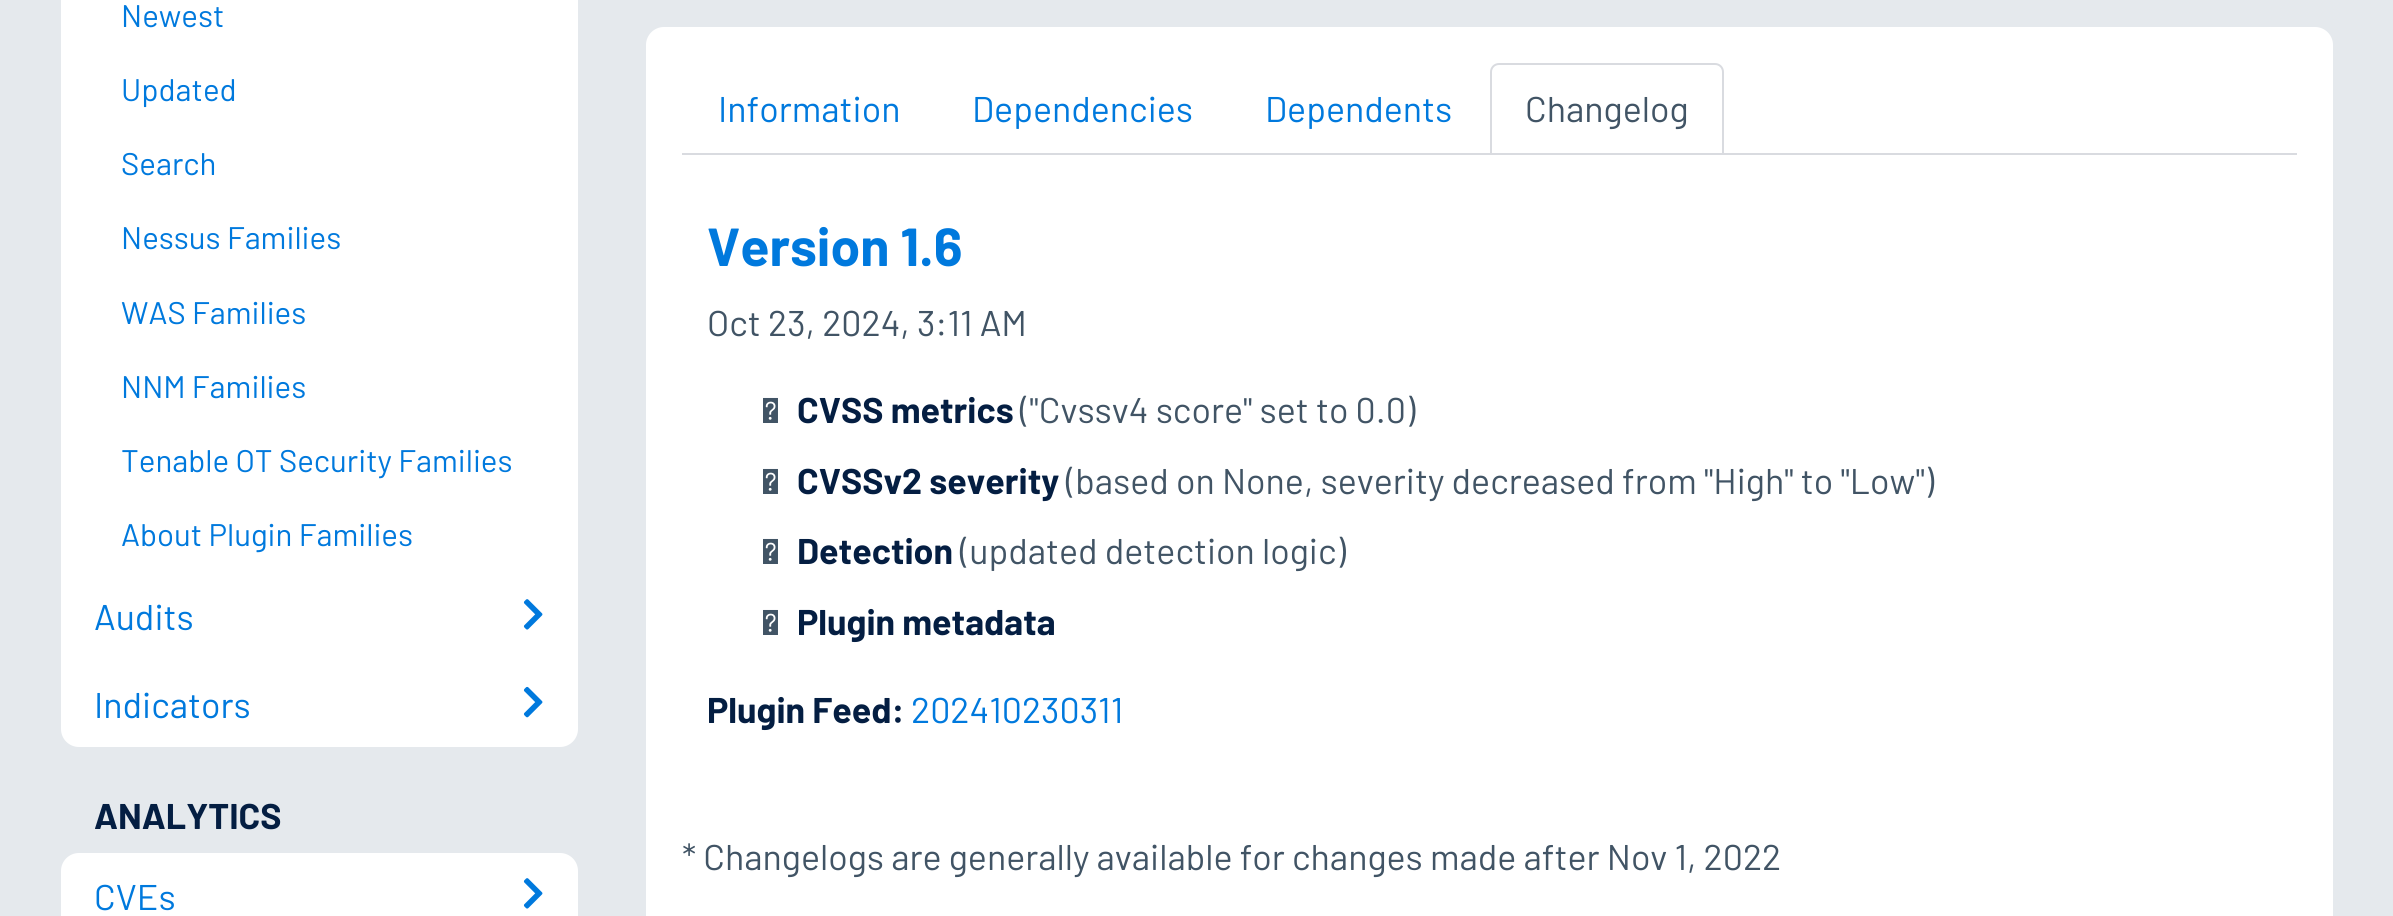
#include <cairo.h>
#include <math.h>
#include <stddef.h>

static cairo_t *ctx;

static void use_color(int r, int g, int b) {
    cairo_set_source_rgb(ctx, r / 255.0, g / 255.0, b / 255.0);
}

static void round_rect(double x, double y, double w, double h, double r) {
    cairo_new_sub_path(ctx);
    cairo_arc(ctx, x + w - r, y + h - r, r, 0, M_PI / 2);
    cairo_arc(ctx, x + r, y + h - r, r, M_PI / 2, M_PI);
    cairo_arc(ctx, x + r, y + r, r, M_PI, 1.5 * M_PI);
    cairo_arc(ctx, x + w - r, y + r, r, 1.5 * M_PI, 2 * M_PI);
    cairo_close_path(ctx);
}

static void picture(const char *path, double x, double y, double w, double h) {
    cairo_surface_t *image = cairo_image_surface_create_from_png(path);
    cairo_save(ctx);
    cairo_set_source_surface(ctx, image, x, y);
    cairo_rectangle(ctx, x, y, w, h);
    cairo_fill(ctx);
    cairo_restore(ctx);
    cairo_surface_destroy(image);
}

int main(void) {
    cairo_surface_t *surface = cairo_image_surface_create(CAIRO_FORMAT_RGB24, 2393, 916);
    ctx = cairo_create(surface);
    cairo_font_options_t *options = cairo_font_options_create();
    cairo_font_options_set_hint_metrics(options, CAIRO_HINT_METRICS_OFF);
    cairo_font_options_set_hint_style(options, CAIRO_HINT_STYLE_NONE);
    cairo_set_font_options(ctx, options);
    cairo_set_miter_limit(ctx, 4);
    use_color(229, 233, 237);
    cairo_paint(ctx);
    use_color(255, 255, 255);
    round_rect(61, -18, 517, 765, 18);
    cairo_fill(ctx);
    cairo_select_font_face(ctx, "Barlow", CAIRO_FONT_SLANT_NORMAL, CAIRO_FONT_WEIGHT_NORMAL);
    cairo_set_font_size(ctx, 31.25);
    use_color(0, 121, 221);
    cairo_move_to(ctx, 121, 27);
    cairo_show_text(ctx, "Newest");
    cairo_move_to(ctx, 121, 101);
    cairo_show_text(ctx, "Updated");
    cairo_move_to(ctx, 121, 175);
    cairo_show_text(ctx, "Search");
    cairo_move_to(ctx, 121, 249);
    cairo_show_text(ctx, "Nessus Families");
    cairo_move_to(ctx, 121, 324);
    cairo_show_text(ctx, "WAS Families");
    cairo_move_to(ctx, 121, 398);
    cairo_show_text(ctx, "NNM Families");
    cairo_move_to(ctx, 121, 472);
    cairo_show_text(ctx, "Tenable OT Security Families");
    cairo_move_to(ctx, 121, 546);
    cairo_show_text(ctx, "About Plugin Families");
    cairo_set_font_size(ctx, 35.75);
    cairo_move_to(ctx, 94, 630);
    cairo_show_text(ctx, "Audits");
    picture("img1.png", 523, 599, 20, 31);
    cairo_move_to(ctx, 94, 718);
    cairo_show_text(ctx, "Indicators");
    picture("img2.png", 523, 686, 20, 32);
    cairo_select_font_face(ctx, "Barlow", CAIRO_FONT_SLANT_NORMAL, CAIRO_FONT_WEIGHT_BOLD);
    use_color(4, 30, 66);
    cairo_move_to(ctx, 94, 829);
    cairo_show_text(ctx, "ANALYTICS");
    use_color(255, 255, 255);
    round_rect(61, 853, 517, 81, 18);
    cairo_fill(ctx);
    cairo_select_font_face(ctx, "Barlow", CAIRO_FONT_SLANT_NORMAL, CAIRO_FONT_WEIGHT_NORMAL);
    use_color(0, 121, 221);
    cairo_move_to(ctx, 94, 910);
    cairo_show_text(ctx, "CVEs");
    picture("img1.png", 523, 878, 20, 31);
    use_color(255, 255, 255);
    round_rect(647, 28, 1685, 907, 17);
    cairo_fill_preserve(ctx);
    cairo_stroke(ctx);
    use_color(217, 219, 224);
    cairo_rectangle(ctx, 682, 153, 1615, 2);
    cairo_fill(ctx);
    use_color(0, 121, 221);
    cairo_move_to(ctx, 718, 122);
    cairo_show_text(ctx, "Information");
    cairo_move_to(ctx, 972, 122);
    cairo_show_text(ctx, "Dependencies");
    cairo_move_to(ctx, 1265, 122);
    cairo_show_text(ctx, "Dependents");
    use_color(255, 255, 255);
    cairo_new_path(ctx);
    cairo_move_to(ctx, 1499, 64);
    cairo_line_to(ctx, 1715, 64);
    cairo_curve_to(ctx, 1719.5, 64, 1723, 67.5, 1723, 72);
    cairo_line_to(ctx, 1723, 154);
    cairo_line_to(ctx, 1491, 154);
    cairo_line_to(ctx, 1491, 72);
    cairo_curve_to(ctx, 1491, 67.5, 1494.5, 64, 1499, 64);
    cairo_close_path(ctx);
    cairo_fill_preserve(ctx);
    use_color(217, 219, 224);
    cairo_stroke(ctx);
    use_color(65, 84, 101);
    cairo_move_to(ctx, 1525, 122);
    cairo_show_text(ctx, "Changelog");
    cairo_select_font_face(ctx, "Barlow", CAIRO_FONT_SLANT_NORMAL, CAIRO_FONT_WEIGHT_BOLD);
    cairo_set_font_size(ctx, 53.5);
    use_color(0, 121, 221);
    cairo_move_to(ctx, 707, 266);
    cairo_show_text(ctx, "Version 1.6");
    cairo_select_font_face(ctx, "Barlow", CAIRO_FONT_SLANT_NORMAL, CAIRO_FONT_WEIGHT_NORMAL);
    cairo_set_font_size(ctx, 35.75);
    use_color(65, 84, 101);
    cairo_move_to(ctx, 707, 336);
    cairo_show_text(ctx, "Oct 23, 2024, 3:11 AM");
    cairo_move_to(ctx, 763, 423);
    cairo_show_text(ctx, "‑");
    cairo_select_font_face(ctx, "Barlow", CAIRO_FONT_SLANT_NORMAL, CAIRO_FONT_WEIGHT_BOLD);
    use_color(4, 30, 66);
    cairo_move_to(ctx, 797, 423);
    cairo_show_text(ctx, "CVSS metrics");
    cairo_select_font_face(ctx, "Barlow", CAIRO_FONT_SLANT_NORMAL, CAIRO_FONT_WEIGHT_NORMAL);
    use_color(65, 84, 101);
    cairo_move_to(ctx, 1020, 423);
    cairo_show_text(ctx, "(\"Cvssv4 score\" set to 0.0)");
    cairo_move_to(ctx, 763, 494);
    cairo_show_text(ctx, "‑");
    cairo_select_font_face(ctx, "Barlow", CAIRO_FONT_SLANT_NORMAL, CAIRO_FONT_WEIGHT_BOLD);
    use_color(4, 30, 66);
    cairo_move_to(ctx, 797, 494);
    cairo_show_text(ctx, "CVSSv2 severity");
    cairo_select_font_face(ctx, "Barlow", CAIRO_FONT_SLANT_NORMAL, CAIRO_FONT_WEIGHT_NORMAL);
    use_color(65, 84, 101);
    cairo_move_to(ctx, 1066, 494);
    cairo_show_text(ctx, "(based on None, severity decreased from \"High\" to \"Low\")");
    cairo_move_to(ctx, 763, 564);
    cairo_show_text(ctx, "‑");
    cairo_select_font_face(ctx, "Barlow", CAIRO_FONT_SLANT_NORMAL, CAIRO_FONT_WEIGHT_BOLD);
    use_color(4, 30, 66);
    cairo_move_to(ctx, 797, 564);
    cairo_show_text(ctx, "Detection");
    cairo_select_font_face(ctx, "Barlow", CAIRO_FONT_SLANT_NORMAL, CAIRO_FONT_WEIGHT_NORMAL);
    use_color(65, 84, 101);
    cairo_move_to(ctx, 960, 564);
    cairo_show_text(ctx, "(updated detection logic)");
    cairo_move_to(ctx, 763, 635);
    cairo_show_text(ctx, "‑");
    cairo_select_font_face(ctx, "Barlow", CAIRO_FONT_SLANT_NORMAL, CAIRO_FONT_WEIGHT_BOLD);
    use_color(4, 30, 66);
    cairo_move_to(ctx, 797, 635);
    cairo_show_text(ctx, "Plugin metadata");
    cairo_move_to(ctx, 707, 723);
    cairo_show_text(ctx, "Plugin Feed:");
    cairo_select_font_face(ctx, "Barlow", CAIRO_FONT_SLANT_NORMAL, CAIRO_FONT_WEIGHT_NORMAL);
    use_color(0, 121, 221);
    cairo_move_to(ctx, 911, 723);
    cairo_show_text(ctx, "202410230311");
    use_color(65, 84, 101);
    cairo_move_to(ctx, 682, 870);
    cairo_show_text(ctx, "* Changelogs are generally available for changes made after Nov 1, 2022");
    cairo_surface_write_to_png(surface, "result.png");
    cairo_font_options_destroy(options);
    cairo_destroy(ctx);
    cairo_surface_destroy(surface);
    return 0;
}
